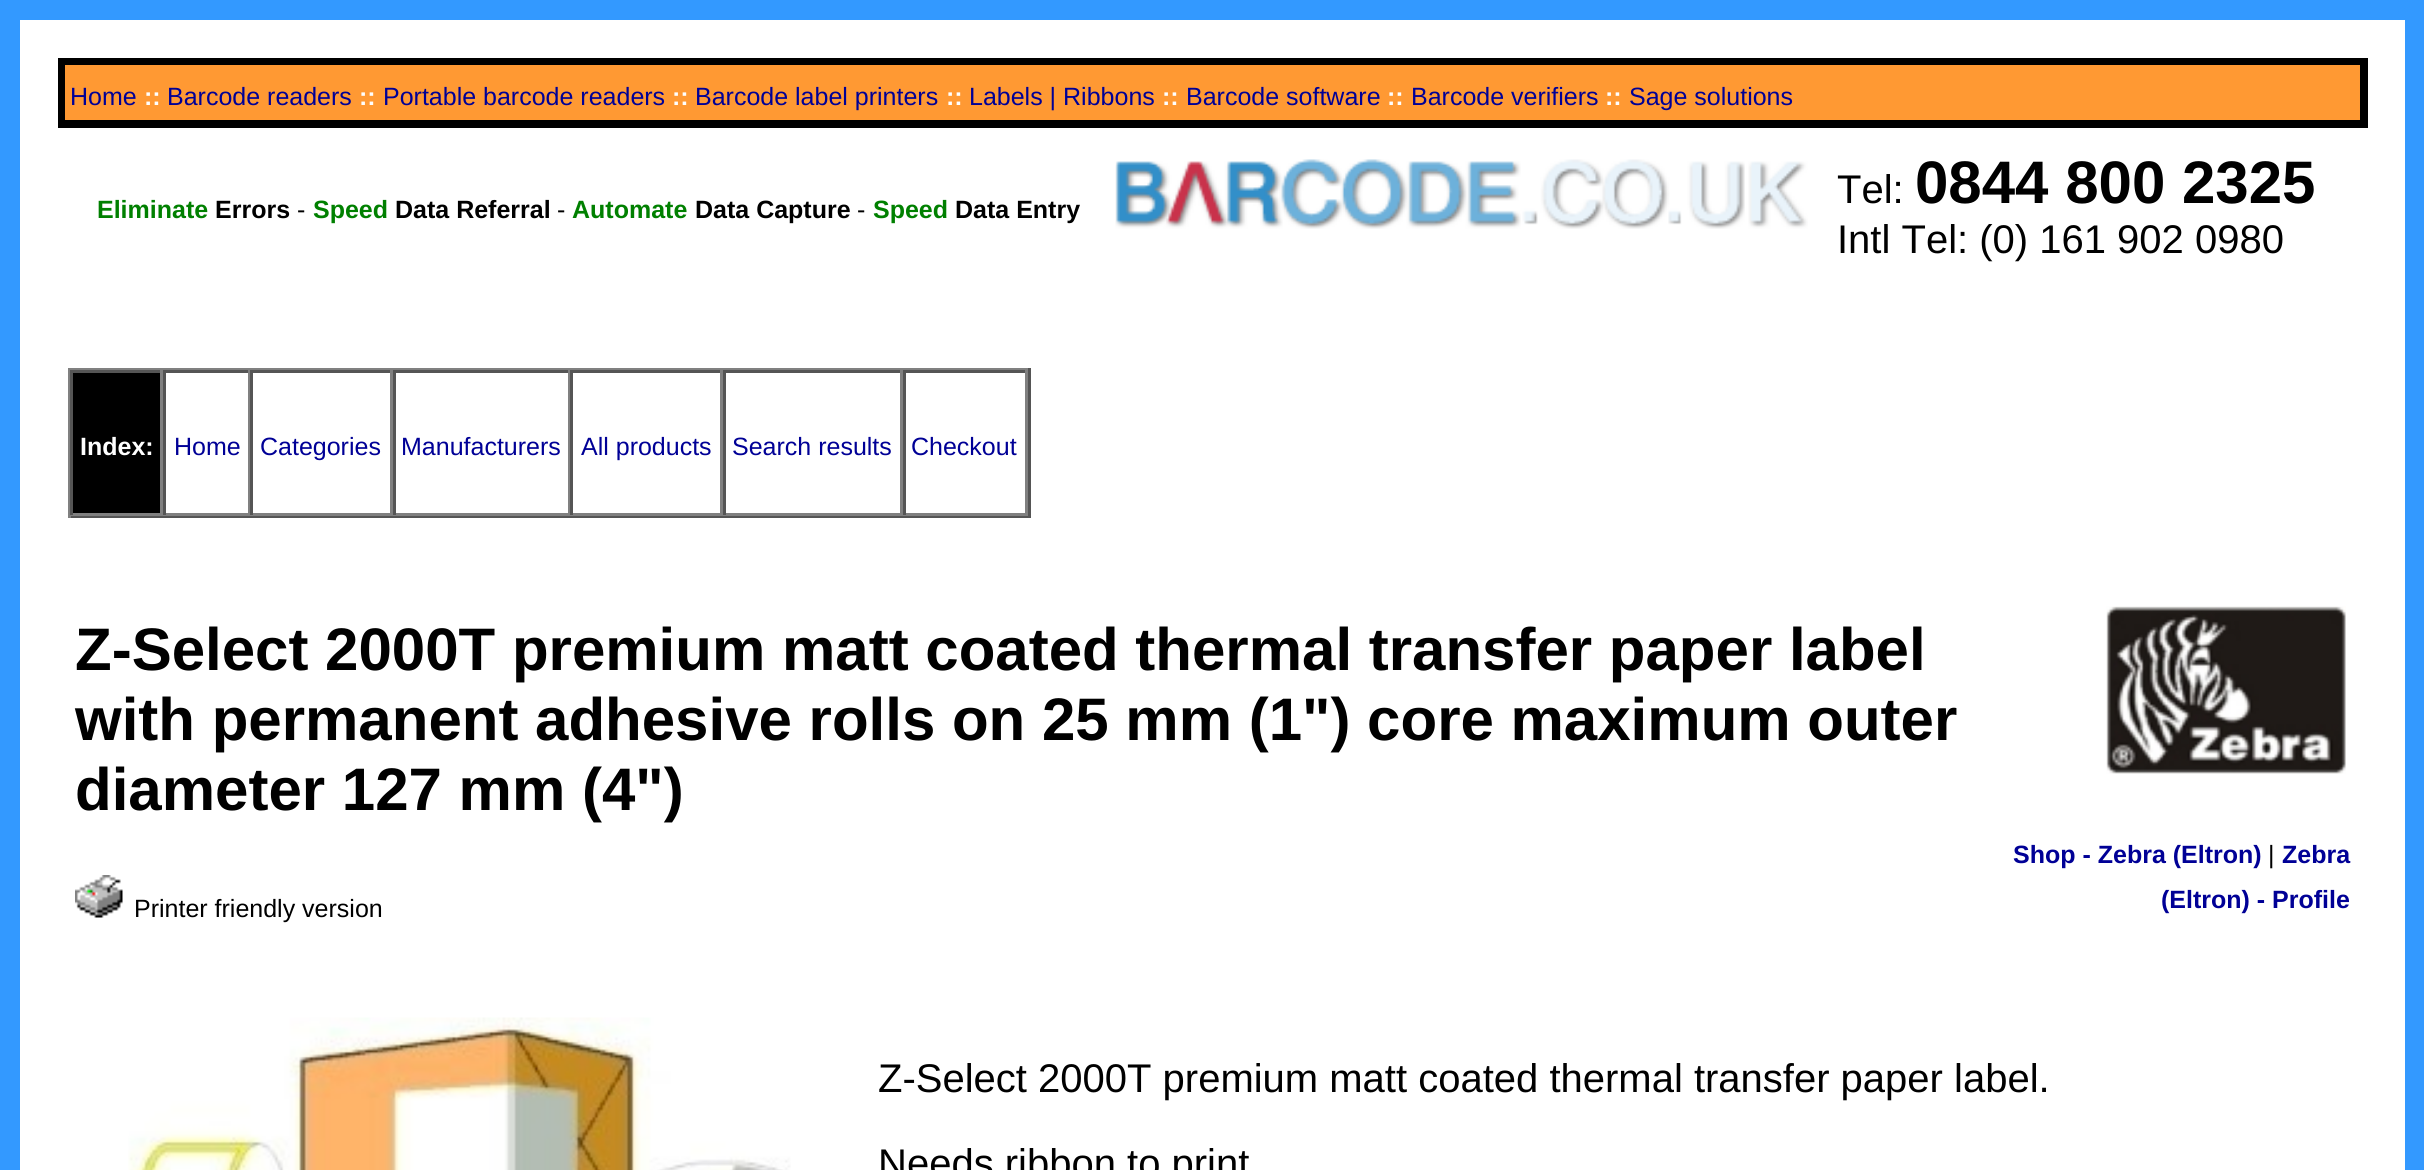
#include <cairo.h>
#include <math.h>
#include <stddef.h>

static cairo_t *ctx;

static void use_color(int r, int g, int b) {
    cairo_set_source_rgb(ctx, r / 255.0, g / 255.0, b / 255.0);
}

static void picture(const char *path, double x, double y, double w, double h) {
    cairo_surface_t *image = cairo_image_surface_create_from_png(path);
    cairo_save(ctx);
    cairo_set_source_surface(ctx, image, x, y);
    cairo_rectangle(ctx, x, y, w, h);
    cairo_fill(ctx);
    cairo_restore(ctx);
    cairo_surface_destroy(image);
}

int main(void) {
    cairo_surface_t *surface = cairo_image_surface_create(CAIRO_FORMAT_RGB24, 2424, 1170);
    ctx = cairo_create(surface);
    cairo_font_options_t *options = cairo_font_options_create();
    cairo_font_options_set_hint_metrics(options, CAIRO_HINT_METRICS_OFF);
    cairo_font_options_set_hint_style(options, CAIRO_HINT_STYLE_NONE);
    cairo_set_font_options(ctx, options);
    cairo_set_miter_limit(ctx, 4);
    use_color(51, 153, 255);
    cairo_paint(ctx);
    use_color(255, 255, 255);
    cairo_rectangle(ctx, 20, 20, 2385, 1150);
    cairo_fill(ctx);
    use_color(0, 0, 0);
    cairo_rectangle(ctx, 58, 58, 2310, 70);
    cairo_fill(ctx);
    use_color(255, 153, 51);
    cairo_rectangle(ctx, 65, 65, 2295, 55);
    cairo_fill(ctx);
    cairo_select_font_face(ctx, "Liberation Sans", CAIRO_FONT_SLANT_NORMAL, CAIRO_FONT_WEIGHT_NORMAL);
    cairo_set_font_size(ctx, 25);
    use_color(0, 0, 150);
    cairo_move_to(ctx, 70, 105);
    cairo_show_text(ctx, "Home");
    cairo_select_font_face(ctx, "Liberation Sans", CAIRO_FONT_SLANT_NORMAL, CAIRO_FONT_WEIGHT_BOLD);
    use_color(255, 255, 255);
    cairo_move_to(ctx, 144, 105);
    cairo_show_text(ctx, "::");
    cairo_select_font_face(ctx, "Liberation Sans", CAIRO_FONT_SLANT_NORMAL, CAIRO_FONT_WEIGHT_NORMAL);
    use_color(0, 0, 150);
    cairo_move_to(ctx, 167, 105);
    cairo_show_text(ctx, "Barcode readers");
    cairo_select_font_face(ctx, "Liberation Sans", CAIRO_FONT_SLANT_NORMAL, CAIRO_FONT_WEIGHT_BOLD);
    use_color(255, 255, 255);
    cairo_move_to(ctx, 359, 105);
    cairo_show_text(ctx, "::");
    cairo_select_font_face(ctx, "Liberation Sans", CAIRO_FONT_SLANT_NORMAL, CAIRO_FONT_WEIGHT_NORMAL);
    use_color(0, 0, 150);
    cairo_move_to(ctx, 383, 105);
    cairo_show_text(ctx, "Portable barcode readers");
    cairo_select_font_face(ctx, "Liberation Sans", CAIRO_FONT_SLANT_NORMAL, CAIRO_FONT_WEIGHT_BOLD);
    use_color(255, 255, 255);
    cairo_move_to(ctx, 672, 105);
    cairo_show_text(ctx, "::");
    cairo_select_font_face(ctx, "Liberation Sans", CAIRO_FONT_SLANT_NORMAL, CAIRO_FONT_WEIGHT_NORMAL);
    use_color(0, 0, 150);
    cairo_move_to(ctx, 695, 105);
    cairo_show_text(ctx, "Barcode label printers");
    cairo_select_font_face(ctx, "Liberation Sans", CAIRO_FONT_SLANT_NORMAL, CAIRO_FONT_WEIGHT_BOLD);
    use_color(255, 255, 255);
    cairo_move_to(ctx, 946, 105);
    cairo_show_text(ctx, "::");
    cairo_select_font_face(ctx, "Liberation Sans", CAIRO_FONT_SLANT_NORMAL, CAIRO_FONT_WEIGHT_NORMAL);
    use_color(0, 0, 150);
    cairo_move_to(ctx, 969, 105);
    cairo_show_text(ctx, "Labels | Ribbons");
    cairo_select_font_face(ctx, "Liberation Sans", CAIRO_FONT_SLANT_NORMAL, CAIRO_FONT_WEIGHT_BOLD);
    use_color(255, 255, 255);
    cairo_move_to(ctx, 1162, 105);
    cairo_show_text(ctx, "::");
    cairo_select_font_face(ctx, "Liberation Sans", CAIRO_FONT_SLANT_NORMAL, CAIRO_FONT_WEIGHT_NORMAL);
    use_color(0, 0, 150);
    cairo_move_to(ctx, 1186, 105);
    cairo_show_text(ctx, "Barcode software");
    cairo_select_font_face(ctx, "Liberation Sans", CAIRO_FONT_SLANT_NORMAL, CAIRO_FONT_WEIGHT_BOLD);
    use_color(255, 255, 255);
    cairo_move_to(ctx, 1387, 105);
    cairo_show_text(ctx, "::");
    cairo_select_font_face(ctx, "Liberation Sans", CAIRO_FONT_SLANT_NORMAL, CAIRO_FONT_WEIGHT_NORMAL);
    use_color(0, 0, 150);
    cairo_move_to(ctx, 1411, 105);
    cairo_show_text(ctx, "Barcode verifiers");
    cairo_select_font_face(ctx, "Liberation Sans", CAIRO_FONT_SLANT_NORMAL, CAIRO_FONT_WEIGHT_BOLD);
    use_color(255, 255, 255);
    cairo_move_to(ctx, 1605, 105);
    cairo_show_text(ctx, "::");
    cairo_select_font_face(ctx, "Liberation Sans", CAIRO_FONT_SLANT_NORMAL, CAIRO_FONT_WEIGHT_NORMAL);
    use_color(0, 0, 150);
    cairo_move_to(ctx, 1629, 105);
    cairo_show_text(ctx, "Sage solutions");
    cairo_select_font_face(ctx, "Liberation Sans", CAIRO_FONT_SLANT_NORMAL, CAIRO_FONT_WEIGHT_BOLD);
    use_color(0, 128, 0);
    cairo_move_to(ctx, 97, 218);
    cairo_show_text(ctx, "Eliminate");
    use_color(0, 0, 0);
    cairo_move_to(ctx, 215, 218);
    cairo_show_text(ctx, "Errors");
    cairo_select_font_face(ctx, "Liberation Sans", CAIRO_FONT_SLANT_NORMAL, CAIRO_FONT_WEIGHT_NORMAL);
    cairo_move_to(ctx, 297, 218);
    cairo_show_text(ctx, "-");
    cairo_select_font_face(ctx, "Liberation Sans", CAIRO_FONT_SLANT_NORMAL, CAIRO_FONT_WEIGHT_BOLD);
    use_color(0, 128, 0);
    cairo_move_to(ctx, 313, 218);
    cairo_show_text(ctx, "Speed");
    use_color(0, 0, 0);
    cairo_move_to(ctx, 395, 218);
    cairo_show_text(ctx, "Data Referral");
    cairo_select_font_face(ctx, "Liberation Sans", CAIRO_FONT_SLANT_NORMAL, CAIRO_FONT_WEIGHT_NORMAL);
    cairo_move_to(ctx, 557, 218);
    cairo_show_text(ctx, "-");
    cairo_select_font_face(ctx, "Liberation Sans", CAIRO_FONT_SLANT_NORMAL, CAIRO_FONT_WEIGHT_BOLD);
    use_color(0, 128, 0);
    cairo_move_to(ctx, 572, 218);
    cairo_show_text(ctx, "Automate");
    use_color(0, 0, 0);
    cairo_move_to(ctx, 695, 218);
    cairo_show_text(ctx, "Data Capture");
    cairo_select_font_face(ctx, "Liberation Sans", CAIRO_FONT_SLANT_NORMAL, CAIRO_FONT_WEIGHT_NORMAL);
    cairo_move_to(ctx, 857, 218);
    cairo_show_text(ctx, "-");
    cairo_select_font_face(ctx, "Liberation Sans", CAIRO_FONT_SLANT_NORMAL, CAIRO_FONT_WEIGHT_BOLD);
    use_color(0, 128, 0);
    cairo_move_to(ctx, 873, 218);
    cairo_show_text(ctx, "Speed");
    use_color(0, 0, 0);
    cairo_move_to(ctx, 955, 218);
    cairo_show_text(ctx, "Data Entry");
    picture("img1.png", 1115, 159, 693, 70);
    cairo_select_font_face(ctx, "Liberation Sans", CAIRO_FONT_SLANT_NORMAL, CAIRO_FONT_WEIGHT_NORMAL);
    cairo_set_font_size(ctx, 40);
    cairo_move_to(ctx, 1837, 203);
    cairo_show_text(ctx, "Tel:");
    cairo_select_font_face(ctx, "Liberation Sans", CAIRO_FONT_SLANT_NORMAL, CAIRO_FONT_WEIGHT_BOLD);
    cairo_set_font_size(ctx, 60);
    cairo_move_to(ctx, 1915, 203);
    cairo_show_text(ctx, "0844 800 2325");
    cairo_select_font_face(ctx, "Liberation Sans", CAIRO_FONT_SLANT_NORMAL, CAIRO_FONT_WEIGHT_NORMAL);
    cairo_set_font_size(ctx, 40);
    cairo_move_to(ctx, 1837, 253);
    cairo_show_text(ctx, "Intl Tel: (0) 161 902 0980");
    use_color(128, 128, 128);
    cairo_rectangle(ctx, 68, 368, 962, 2);
    cairo_fill(ctx);
    use_color(85, 85, 85);
    cairo_rectangle(ctx, 1028, 368, 3, 150);
    cairo_fill(ctx);
    cairo_rectangle(ctx, 68, 515, 962, 3);
    cairo_fill(ctx);
    use_color(128, 128, 128);
    cairo_rectangle(ctx, 68, 368, 3, 150);
    cairo_fill(ctx);
    use_color(0, 0, 0);
    cairo_rectangle(ctx, 73, 373, 87, 140);
    cairo_fill(ctx);
    use_color(85, 85, 85);
    cairo_rectangle(ctx, 70, 370, 958, 3);
    cairo_fill(ctx);
    use_color(128, 128, 128);
    cairo_rectangle(ctx, 160, 370, 3, 145);
    cairo_fill(ctx);
    cairo_rectangle(ctx, 70, 513, 93, 3);
    cairo_fill(ctx);
    use_color(85, 85, 85);
    cairo_rectangle(ctx, 70, 370, 3, 145);
    cairo_fill(ctx);
    cairo_select_font_face(ctx, "Liberation Sans", CAIRO_FONT_SLANT_NORMAL, CAIRO_FONT_WEIGHT_BOLD);
    cairo_set_font_size(ctx, 25);
    use_color(255, 255, 255);
    cairo_move_to(ctx, 80, 455);
    cairo_show_text(ctx, "Index:");
    use_color(128, 128, 128);
    cairo_rectangle(ctx, 248, 370, 2, 145);
    cairo_fill(ctx);
    cairo_rectangle(ctx, 163, 513, 87, 3);
    cairo_fill(ctx);
    use_color(85, 85, 85);
    cairo_rectangle(ctx, 163, 370, 3, 145);
    cairo_fill(ctx);
    cairo_select_font_face(ctx, "Liberation Sans", CAIRO_FONT_SLANT_NORMAL, CAIRO_FONT_WEIGHT_NORMAL);
    use_color(0, 0, 150);
    cairo_move_to(ctx, 174, 455);
    cairo_show_text(ctx, "Home");
    use_color(128, 128, 128);
    cairo_rectangle(ctx, 390, 370, 3, 145);
    cairo_fill(ctx);
    cairo_rectangle(ctx, 250, 513, 143, 3);
    cairo_fill(ctx);
    use_color(85, 85, 85);
    cairo_rectangle(ctx, 250, 370, 3, 145);
    cairo_fill(ctx);
    use_color(0, 0, 150);
    cairo_move_to(ctx, 260, 455);
    cairo_show_text(ctx, "Categories");
    use_color(128, 128, 128);
    cairo_rectangle(ctx, 568, 370, 2, 145);
    cairo_fill(ctx);
    cairo_rectangle(ctx, 393, 513, 177, 3);
    cairo_fill(ctx);
    use_color(85, 85, 85);
    cairo_rectangle(ctx, 393, 370, 3, 145);
    cairo_fill(ctx);
    use_color(0, 0, 150);
    cairo_move_to(ctx, 401, 455);
    cairo_show_text(ctx, "Manufacturers");
    use_color(128, 128, 128);
    cairo_rectangle(ctx, 720, 370, 3, 145);
    cairo_fill(ctx);
    cairo_rectangle(ctx, 570, 513, 153, 3);
    cairo_fill(ctx);
    use_color(85, 85, 85);
    cairo_rectangle(ctx, 570, 370, 3, 145);
    cairo_fill(ctx);
    use_color(0, 0, 150);
    cairo_move_to(ctx, 581, 455);
    cairo_show_text(ctx, "All products");
    use_color(128, 128, 128);
    cairo_rectangle(ctx, 900, 370, 3, 145);
    cairo_fill(ctx);
    cairo_rectangle(ctx, 723, 513, 180, 3);
    cairo_fill(ctx);
    use_color(85, 85, 85);
    cairo_rectangle(ctx, 723, 370, 3, 145);
    cairo_fill(ctx);
    use_color(0, 0, 150);
    cairo_move_to(ctx, 732, 455);
    cairo_show_text(ctx, "Search results");
    use_color(128, 128, 128);
    cairo_rectangle(ctx, 1025, 370, 3, 145);
    cairo_fill(ctx);
    cairo_rectangle(ctx, 903, 513, 125, 3);
    cairo_fill(ctx);
    use_color(85, 85, 85);
    cairo_rectangle(ctx, 903, 370, 3, 145);
    cairo_fill(ctx);
    use_color(0, 0, 150);
    cairo_move_to(ctx, 911, 455);
    cairo_show_text(ctx, "Checkout");
    cairo_select_font_face(ctx, "Liberation Sans", CAIRO_FONT_SLANT_NORMAL, CAIRO_FONT_WEIGHT_BOLD);
    cairo_set_font_size(ctx, 60);
    use_color(0, 0, 0);
    cairo_move_to(ctx, 75, 670);
    cairo_show_text(ctx, "Z-Select 2000T premium matt coated thermal transfer paper label");
    cairo_move_to(ctx, 75, 740);
    cairo_show_text(ctx, "with permanent adhesive rolls on 25 mm (1\") core maximum outer");
    cairo_move_to(ctx, 75, 810);
    cairo_show_text(ctx, "diameter 127 mm (4\")");
    picture("img2.png", 75, 875, 48, 43);
    cairo_select_font_face(ctx, "Liberation Sans", CAIRO_FONT_SLANT_NORMAL, CAIRO_FONT_WEIGHT_NORMAL);
    cairo_set_font_size(ctx, 25);
    cairo_move_to(ctx, 134, 917);
    cairo_show_text(ctx, "Printer friendly version");
    picture("img3.png", 2106, 606, 240, 168);
    cairo_select_font_face(ctx, "Liberation Sans", CAIRO_FONT_SLANT_NORMAL, CAIRO_FONT_WEIGHT_BOLD);
    use_color(0, 0, 150);
    cairo_move_to(ctx, 2013, 863);
    cairo_show_text(ctx, "Shop - Zebra (Eltron)");
    cairo_select_font_face(ctx, "Liberation Sans", CAIRO_FONT_SLANT_NORMAL, CAIRO_FONT_WEIGHT_NORMAL);
    use_color(0, 0, 0);
    cairo_move_to(ctx, 2268, 863);
    cairo_show_text(ctx, "|");
    cairo_select_font_face(ctx, "Liberation Sans", CAIRO_FONT_SLANT_NORMAL, CAIRO_FONT_WEIGHT_BOLD);
    use_color(0, 0, 150);
    cairo_move_to(ctx, 2282, 863);
    cairo_show_text(ctx, "Zebra");
    cairo_move_to(ctx, 2161, 908);
    cairo_show_text(ctx, "(Eltron) - Profile");
    picture("img4.png", 128, 1017, 663, 153);
    cairo_select_font_face(ctx, "Liberation Sans", CAIRO_FONT_SLANT_NORMAL, CAIRO_FONT_WEIGHT_NORMAL);
    cairo_set_font_size(ctx, 40);
    use_color(0, 0, 0);
    cairo_move_to(ctx, 878, 1092);
    cairo_show_text(ctx, "Z-Select 2000T premium matt coated thermal transfer paper label.");
    cairo_move_to(ctx, 878, 1177);
    cairo_show_text(ctx, "Needs ribbon to print");
    cairo_surface_write_to_png(surface, "result.png");
    cairo_font_options_destroy(options);
    cairo_destroy(ctx);
    cairo_surface_destroy(surface);
    return 0;
}
